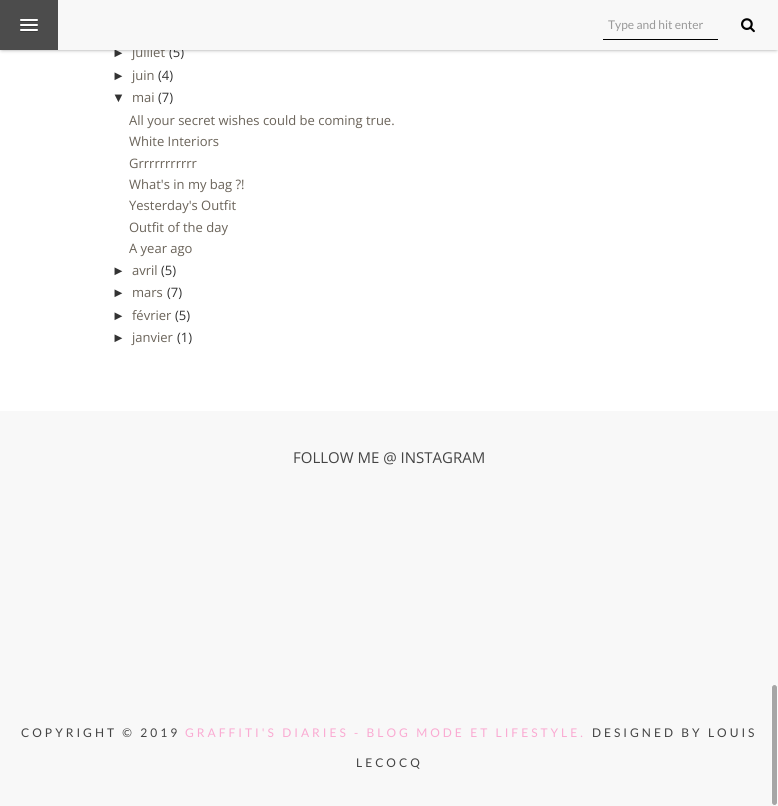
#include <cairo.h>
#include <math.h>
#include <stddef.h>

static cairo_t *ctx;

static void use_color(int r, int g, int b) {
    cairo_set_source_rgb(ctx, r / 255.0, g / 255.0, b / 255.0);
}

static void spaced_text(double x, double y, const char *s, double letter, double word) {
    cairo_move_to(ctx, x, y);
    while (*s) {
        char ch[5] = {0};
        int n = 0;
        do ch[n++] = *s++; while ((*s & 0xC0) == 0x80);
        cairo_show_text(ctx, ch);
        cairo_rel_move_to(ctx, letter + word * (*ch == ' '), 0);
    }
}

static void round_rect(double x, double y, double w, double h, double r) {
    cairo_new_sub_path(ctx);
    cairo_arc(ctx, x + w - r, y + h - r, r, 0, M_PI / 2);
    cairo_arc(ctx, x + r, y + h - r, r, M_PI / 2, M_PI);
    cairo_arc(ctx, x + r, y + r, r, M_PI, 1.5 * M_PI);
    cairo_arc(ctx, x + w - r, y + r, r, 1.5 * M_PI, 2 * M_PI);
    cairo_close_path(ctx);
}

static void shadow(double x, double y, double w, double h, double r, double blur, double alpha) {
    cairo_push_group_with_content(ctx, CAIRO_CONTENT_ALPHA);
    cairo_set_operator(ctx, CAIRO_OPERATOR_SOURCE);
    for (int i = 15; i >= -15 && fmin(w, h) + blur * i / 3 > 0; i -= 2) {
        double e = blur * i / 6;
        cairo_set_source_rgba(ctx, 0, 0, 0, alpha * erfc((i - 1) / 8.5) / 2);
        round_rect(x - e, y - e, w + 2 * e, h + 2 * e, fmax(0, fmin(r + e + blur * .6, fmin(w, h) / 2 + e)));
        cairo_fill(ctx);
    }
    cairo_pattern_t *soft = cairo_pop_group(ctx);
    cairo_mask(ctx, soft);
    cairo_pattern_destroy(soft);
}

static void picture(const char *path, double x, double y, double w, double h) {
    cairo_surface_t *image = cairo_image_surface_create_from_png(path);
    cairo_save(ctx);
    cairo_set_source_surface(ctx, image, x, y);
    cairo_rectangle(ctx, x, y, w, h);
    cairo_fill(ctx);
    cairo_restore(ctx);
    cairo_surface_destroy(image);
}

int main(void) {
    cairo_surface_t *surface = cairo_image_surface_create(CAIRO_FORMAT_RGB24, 778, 806);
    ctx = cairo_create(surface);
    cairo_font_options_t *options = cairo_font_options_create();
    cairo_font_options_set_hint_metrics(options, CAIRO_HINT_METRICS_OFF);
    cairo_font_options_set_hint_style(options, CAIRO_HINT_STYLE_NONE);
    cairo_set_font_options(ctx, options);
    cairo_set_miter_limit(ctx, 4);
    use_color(255, 255, 255);
    cairo_paint(ctx);
    use_color(0, 0, 0);
    shadow(2, 2, 774, 46, 0, 2.5, 1);
    cairo_select_font_face(ctx, "Liberation Sans", CAIRO_FONT_SLANT_NORMAL, CAIRO_FONT_WEIGHT_NORMAL);
    cairo_set_font_size(ctx, 13);
    use_color(51, 51, 51);
    cairo_move_to(ctx, 112, 57);
    cairo_show_text(ctx, "►");
    cairo_select_font_face(ctx, "Open Sans", CAIRO_FONT_SLANT_NORMAL, CAIRO_FONT_WEIGHT_NORMAL);
    use_color(106, 99, 89);
    cairo_move_to(ctx, 132, 57);
    cairo_show_text(ctx, "juillet");
    use_color(51, 51, 51);
    cairo_move_to(ctx, 169, 57);
    cairo_show_text(ctx, "(5)");
    use_color(248, 248, 248);
    cairo_rectangle(ctx, 58, 0, 720, 50);
    cairo_fill(ctx);
    use_color(76, 76, 76);
    cairo_rectangle(ctx, 0, 0, 58, 50);
    cairo_fill(ctx);
    use_color(57, 57, 57);
    cairo_new_path(ctx);
    cairo_move_to(ctx, 20, 20.5);
    cairo_curve_to(ctx, 19, 22.5, 23.5, 22, 23.5, 22);
    cairo_line_to(ctx, 34.5, 22);
    cairo_curve_to(ctx, 34.5, 22, 39, 22.5, 38, 20.5);
    cairo_curve_to(ctx, 37, 21.5, 30.5, 21, 29, 21);
    cairo_curve_to(ctx, 27.5, 21, 21, 21.5, 20, 20.5);
    cairo_close_path(ctx);
    cairo_fill(ctx);
    use_color(255, 255, 255);
    round_rect(20, 19, 18, 2, 1);
    cairo_fill(ctx);
    use_color(57, 57, 57);
    cairo_new_path(ctx);
    cairo_move_to(ctx, 20, 25.5);
    cairo_curve_to(ctx, 19, 27.5, 23.5, 27, 23.5, 27);
    cairo_line_to(ctx, 34.5, 27);
    cairo_curve_to(ctx, 34.5, 27, 39, 27.5, 38, 25.5);
    cairo_curve_to(ctx, 37, 26.5, 30.5, 26, 29, 26);
    cairo_curve_to(ctx, 27.5, 26, 21, 26.5, 20, 25.5);
    cairo_close_path(ctx);
    cairo_fill(ctx);
    use_color(255, 255, 255);
    round_rect(20, 24, 18, 2, 1);
    cairo_fill(ctx);
    use_color(57, 57, 57);
    cairo_new_path(ctx);
    cairo_move_to(ctx, 20, 30.5);
    cairo_curve_to(ctx, 19, 32.5, 23.5, 32, 23.5, 32);
    cairo_line_to(ctx, 34.5, 32);
    cairo_curve_to(ctx, 34.5, 32, 39, 32.5, 38, 30.5);
    cairo_curve_to(ctx, 37, 31.5, 30.5, 31, 29, 31);
    cairo_curve_to(ctx, 27.5, 31, 21, 31.5, 20, 30.5);
    cairo_close_path(ctx);
    cairo_fill(ctx);
    use_color(255, 255, 255);
    round_rect(20, 29, 18, 2, 1);
    cairo_fill(ctx);
    use_color(0, 0, 0);
    cairo_rectangle(ctx, 603, 39, 115, 1);
    cairo_fill(ctx);
    cairo_select_font_face(ctx, "Lato", CAIRO_FONT_SLANT_NORMAL, CAIRO_FONT_WEIGHT_NORMAL);
    cairo_set_font_size(ctx, 12);
    use_color(153, 153, 153);
    cairo_move_to(ctx, 608, 29);
    cairo_show_text(ctx, "Type and hit enter");
    picture("img1.png", 741, 18, 14, 15);
    cairo_select_font_face(ctx, "Liberation Sans", CAIRO_FONT_SLANT_NORMAL, CAIRO_FONT_WEIGHT_NORMAL);
    cairo_set_font_size(ctx, 13);
    use_color(51, 51, 51);
    cairo_move_to(ctx, 112, 80);
    cairo_show_text(ctx, "►");
    cairo_select_font_face(ctx, "Open Sans", CAIRO_FONT_SLANT_NORMAL, CAIRO_FONT_WEIGHT_NORMAL);
    use_color(106, 99, 89);
    cairo_move_to(ctx, 132, 80);
    cairo_show_text(ctx, "juin");
    use_color(51, 51, 51);
    cairo_move_to(ctx, 158, 80);
    cairo_show_text(ctx, "(4)");
    cairo_select_font_face(ctx, "Liberation Sans", CAIRO_FONT_SLANT_NORMAL, CAIRO_FONT_WEIGHT_NORMAL);
    cairo_move_to(ctx, 112, 102);
    cairo_show_text(ctx, "▼");
    cairo_select_font_face(ctx, "Open Sans", CAIRO_FONT_SLANT_NORMAL, CAIRO_FONT_WEIGHT_NORMAL);
    use_color(106, 99, 89);
    cairo_move_to(ctx, 132, 102);
    cairo_show_text(ctx, "mai");
    use_color(51, 51, 51);
    cairo_move_to(ctx, 158, 102);
    cairo_show_text(ctx, "(7)");
    use_color(106, 99, 89);
    cairo_move_to(ctx, 129, 125);
    cairo_show_text(ctx, "All your secret wishes could be coming true.");
    cairo_move_to(ctx, 129, 146);
    cairo_show_text(ctx, "White Interiors");
    cairo_move_to(ctx, 129, 168);
    cairo_show_text(ctx, "Grrrrrrrrrrr");
    cairo_move_to(ctx, 129, 189);
    cairo_show_text(ctx, "What's in my bag ?!");
    cairo_move_to(ctx, 129, 210);
    cairo_show_text(ctx, "Yesterday's Outfit");
    cairo_move_to(ctx, 129, 232);
    cairo_show_text(ctx, "Outfit of the day");
    cairo_move_to(ctx, 129, 253);
    cairo_show_text(ctx, "A year ago");
    cairo_select_font_face(ctx, "Liberation Sans", CAIRO_FONT_SLANT_NORMAL, CAIRO_FONT_WEIGHT_NORMAL);
    use_color(51, 51, 51);
    cairo_move_to(ctx, 112, 275);
    cairo_show_text(ctx, "►");
    cairo_select_font_face(ctx, "Open Sans", CAIRO_FONT_SLANT_NORMAL, CAIRO_FONT_WEIGHT_NORMAL);
    use_color(106, 99, 89);
    cairo_move_to(ctx, 132, 275);
    cairo_show_text(ctx, "avril");
    use_color(51, 51, 51);
    cairo_move_to(ctx, 161, 275);
    cairo_show_text(ctx, "(5)");
    cairo_select_font_face(ctx, "Liberation Sans", CAIRO_FONT_SLANT_NORMAL, CAIRO_FONT_WEIGHT_NORMAL);
    cairo_move_to(ctx, 112, 297);
    cairo_show_text(ctx, "►");
    cairo_select_font_face(ctx, "Open Sans", CAIRO_FONT_SLANT_NORMAL, CAIRO_FONT_WEIGHT_NORMAL);
    use_color(106, 99, 89);
    cairo_move_to(ctx, 132, 297);
    cairo_show_text(ctx, "mars");
    use_color(51, 51, 51);
    cairo_move_to(ctx, 167, 297);
    cairo_show_text(ctx, "(7)");
    cairo_select_font_face(ctx, "Liberation Sans", CAIRO_FONT_SLANT_NORMAL, CAIRO_FONT_WEIGHT_NORMAL);
    cairo_move_to(ctx, 112, 320);
    cairo_show_text(ctx, "►");
    cairo_select_font_face(ctx, "Open Sans", CAIRO_FONT_SLANT_NORMAL, CAIRO_FONT_WEIGHT_NORMAL);
    use_color(106, 99, 89);
    cairo_move_to(ctx, 132, 320);
    cairo_show_text(ctx, "février");
    use_color(51, 51, 51);
    cairo_move_to(ctx, 175, 320);
    cairo_show_text(ctx, "(5)");
    cairo_select_font_face(ctx, "Liberation Sans", CAIRO_FONT_SLANT_NORMAL, CAIRO_FONT_WEIGHT_NORMAL);
    cairo_move_to(ctx, 112, 342);
    cairo_show_text(ctx, "►");
    cairo_select_font_face(ctx, "Open Sans", CAIRO_FONT_SLANT_NORMAL, CAIRO_FONT_WEIGHT_NORMAL);
    use_color(106, 99, 89);
    cairo_move_to(ctx, 132, 342);
    cairo_show_text(ctx, "janvier");
    use_color(51, 51, 51);
    cairo_move_to(ctx, 177, 342);
    cairo_show_text(ctx, "(1)");
    use_color(248, 248, 248);
    cairo_rectangle(ctx, 0, 411, 778, 395);
    cairo_fill(ctx);
    cairo_set_font_size(ctx, 15);
    use_color(68, 68, 68);
    cairo_move_to(ctx, 293, 463);
    cairo_show_text(ctx, "FOLLOW ME @ INSTAGRAM");
    cairo_select_font_face(ctx, "Lato", CAIRO_FONT_SLANT_NORMAL, CAIRO_FONT_WEIGHT_NORMAL);
    cairo_set_font_size(ctx, 12);
    spaced_text(21, 737, "COPYRIGHT © 2019", 3, 0);
    use_color(250, 170, 210);
    spaced_text(185, 737, "GRAFFITI'S DIARIES - BLOG MODE ET LIFESTYLE.", 3, 0);
    use_color(68, 68, 68);
    spaced_text(592, 737, "DESIGNED BY LOUIS", 3, 0);
    spaced_text(356, 767, "LECOCQ", 3, 0);
    use_color(166, 166, 166);
    round_rect(771.5, 684.5, 6, 121, 3);
    cairo_fill_preserve(ctx);
    use_color(251, 251, 251);
    cairo_set_line_width(ctx, 1);
    cairo_stroke(ctx);
    cairo_surface_write_to_png(surface, "result.png");
    cairo_font_options_destroy(options);
    cairo_destroy(ctx);
    cairo_surface_destroy(surface);
    return 0;
}
